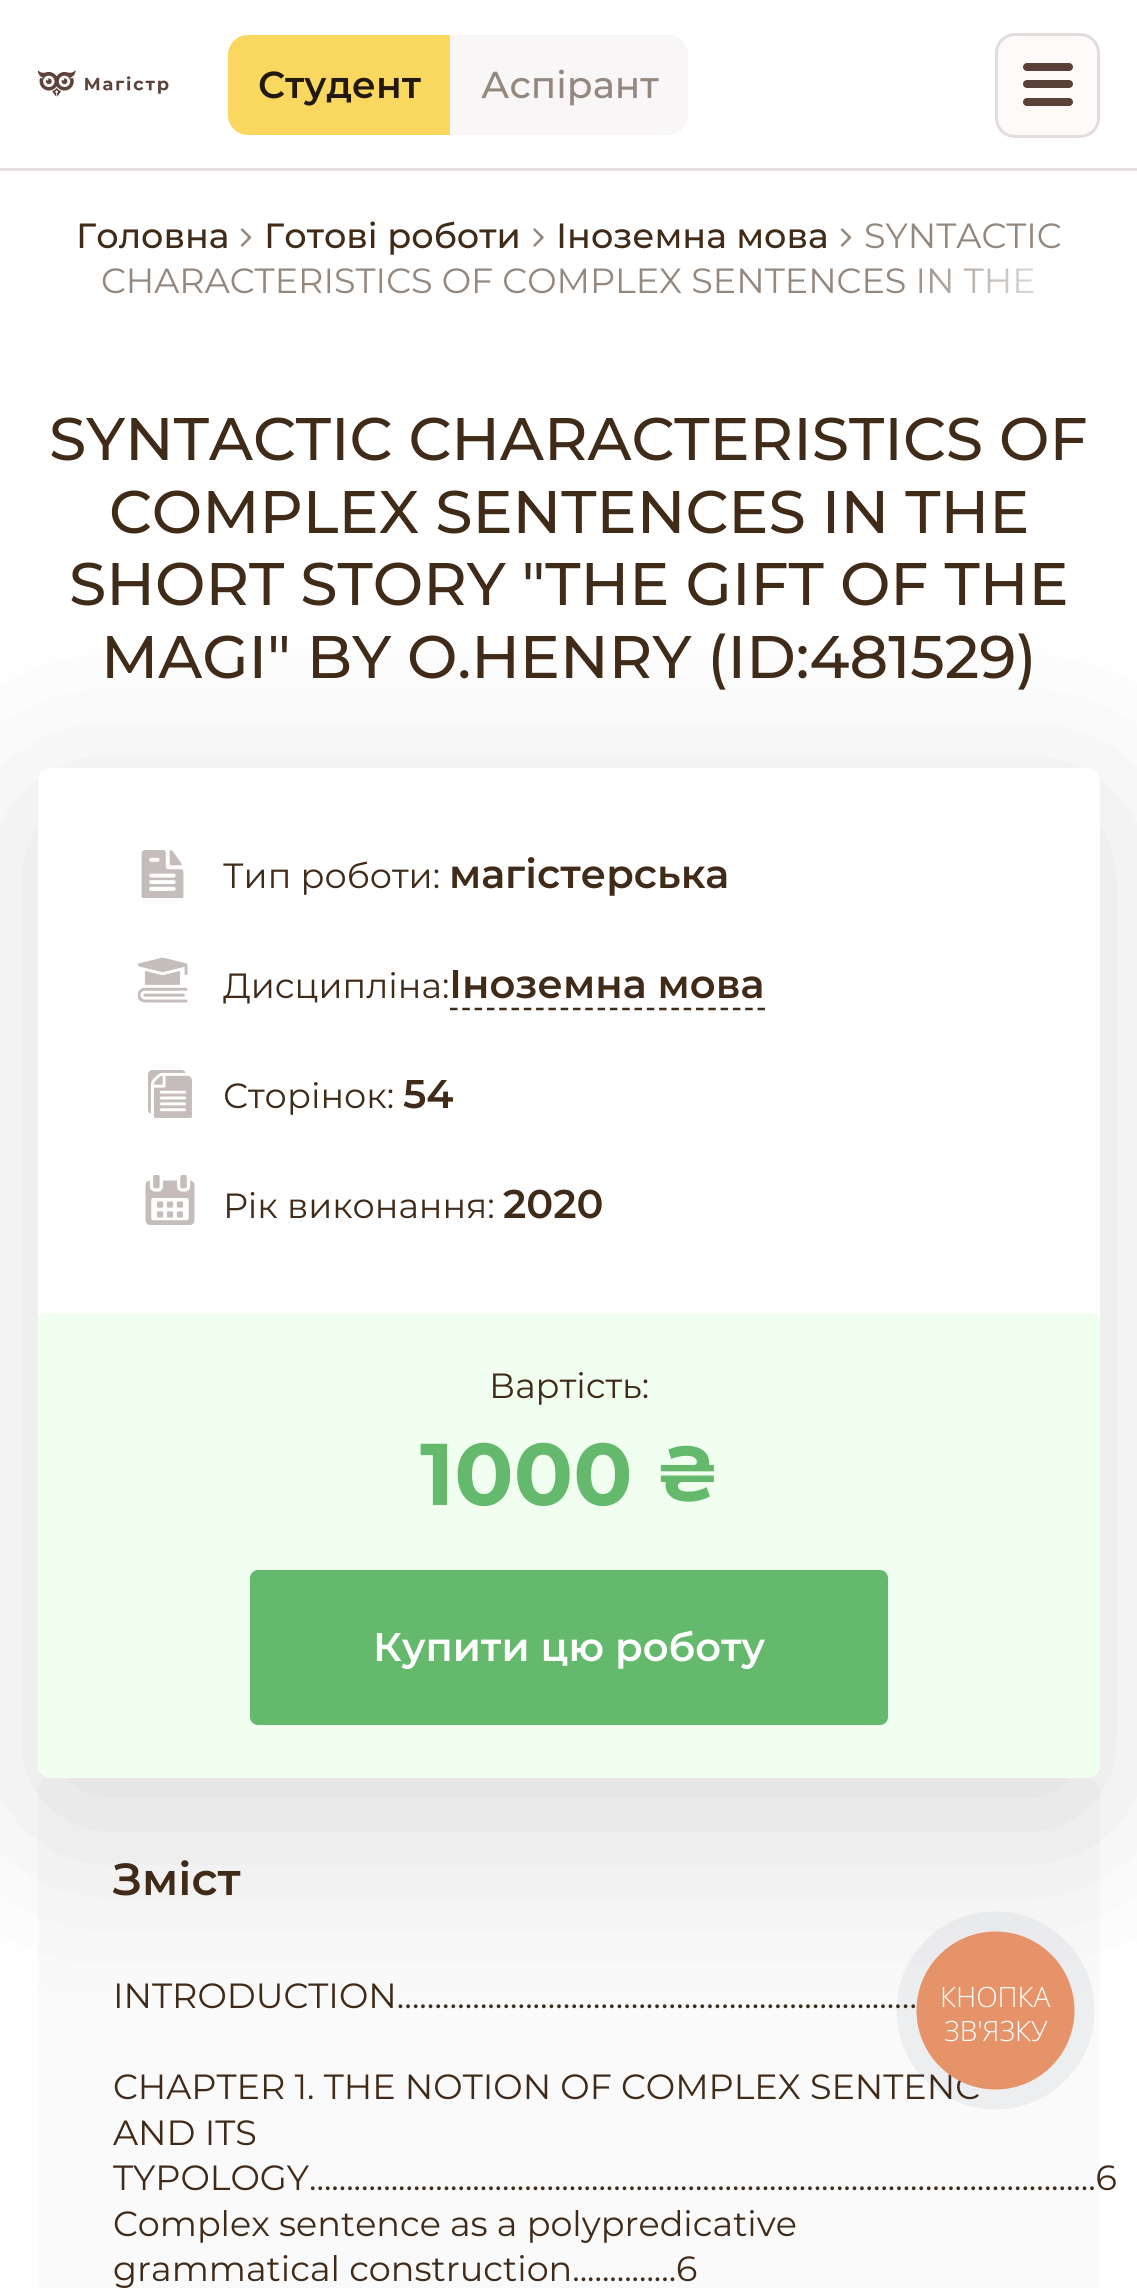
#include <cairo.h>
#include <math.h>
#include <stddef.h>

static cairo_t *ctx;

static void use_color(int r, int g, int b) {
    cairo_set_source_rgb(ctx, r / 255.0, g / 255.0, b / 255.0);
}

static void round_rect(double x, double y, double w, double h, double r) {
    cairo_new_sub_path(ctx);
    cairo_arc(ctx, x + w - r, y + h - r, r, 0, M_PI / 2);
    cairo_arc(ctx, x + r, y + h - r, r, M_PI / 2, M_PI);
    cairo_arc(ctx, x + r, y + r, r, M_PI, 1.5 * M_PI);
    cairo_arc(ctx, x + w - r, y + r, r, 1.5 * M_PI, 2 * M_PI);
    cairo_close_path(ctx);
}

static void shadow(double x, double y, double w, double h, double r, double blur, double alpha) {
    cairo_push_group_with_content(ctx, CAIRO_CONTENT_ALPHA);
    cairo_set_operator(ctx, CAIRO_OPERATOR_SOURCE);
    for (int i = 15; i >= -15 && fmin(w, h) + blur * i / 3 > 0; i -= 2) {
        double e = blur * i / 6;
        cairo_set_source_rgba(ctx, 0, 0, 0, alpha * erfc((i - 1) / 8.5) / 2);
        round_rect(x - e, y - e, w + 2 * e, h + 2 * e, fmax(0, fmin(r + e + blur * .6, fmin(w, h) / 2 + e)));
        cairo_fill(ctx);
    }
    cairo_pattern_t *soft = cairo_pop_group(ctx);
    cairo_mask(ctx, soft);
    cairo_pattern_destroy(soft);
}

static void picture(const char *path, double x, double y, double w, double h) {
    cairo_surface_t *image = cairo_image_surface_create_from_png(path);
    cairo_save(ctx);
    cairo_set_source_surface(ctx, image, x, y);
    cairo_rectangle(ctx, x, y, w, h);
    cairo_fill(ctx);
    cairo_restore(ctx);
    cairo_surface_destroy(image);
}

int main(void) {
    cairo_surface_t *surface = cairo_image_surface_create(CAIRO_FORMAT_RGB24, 1137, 2288);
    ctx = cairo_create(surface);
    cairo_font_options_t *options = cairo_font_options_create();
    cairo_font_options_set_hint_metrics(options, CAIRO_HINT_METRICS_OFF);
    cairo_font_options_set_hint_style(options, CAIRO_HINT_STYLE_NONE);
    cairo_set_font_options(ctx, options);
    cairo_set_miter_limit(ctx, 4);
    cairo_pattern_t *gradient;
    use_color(255, 255, 255);
    cairo_paint(ctx);
    use_color(231, 224, 222);
    cairo_rectangle(ctx, 0, 168, 1137, 3);
    cairo_fill(ctx);
    picture("img1.png", 38, 70, 131, 27);
    use_color(248, 246, 246);
    round_rect(228, 35, 460, 100, 20);
    cairo_fill(ctx);
    use_color(250, 215, 95);
    cairo_new_path(ctx);
    cairo_move_to(ctx, 248, 35);
    cairo_line_to(ctx, 450, 35);
    cairo_line_to(ctx, 450, 135);
    cairo_line_to(ctx, 248, 135);
    cairo_curve_to(ctx, 237, 135, 228, 126, 228, 115);
    cairo_line_to(ctx, 228, 55);
    cairo_curve_to(ctx, 228, 44, 237, 35, 248, 35);
    cairo_close_path(ctx);
    cairo_fill(ctx);
    cairo_select_font_face(ctx, "Montserrat SemiBold", CAIRO_FONT_SLANT_NORMAL, CAIRO_FONT_WEIGHT_NORMAL);
    cairo_set_font_size(ctx, 37.5);
    use_color(33, 24, 16);
    cairo_move_to(ctx, 258, 98);
    cairo_show_text(ctx, "Студент");
    cairo_select_font_face(ctx, "Montserrat Medium", CAIRO_FONT_SLANT_NORMAL, CAIRO_FONT_WEIGHT_NORMAL);
    use_color(147, 135, 126);
    cairo_move_to(ctx, 481, 98);
    cairo_show_text(ctx, "Аспірант");
    use_color(255, 250, 250);
    round_rect(996.5, 34.5, 102, 102, 18.5);
    cairo_fill_preserve(ctx);
    use_color(228, 220, 220);
    cairo_set_line_width(ctx, 3);
    cairo_stroke(ctx);
    use_color(89, 65, 57);
    round_rect(1023, 63, 50, 8, 4);
    cairo_fill(ctx);
    round_rect(1023, 80, 50, 8, 4);
    cairo_fill(ctx);
    round_rect(1023, 98, 50, 8, 4);
    cairo_fill(ctx);
    cairo_set_font_size(ctx, 35);
    use_color(64, 42, 24);
    cairo_move_to(ctx, 76, 248);
    cairo_show_text(ctx, "Головна");
    picture("img2.png", 240, 228, 12, 19);
    cairo_move_to(ctx, 264, 248);
    cairo_show_text(ctx, "Готові роботи");
    picture("img3.png", 533, 228, 11, 19);
    cairo_move_to(ctx, 556, 248);
    cairo_show_text(ctx, "Іноземна мова");
    picture("img2.png", 840, 228, 12, 19);
    cairo_select_font_face(ctx, "Montserrat", CAIRO_FONT_SLANT_NORMAL, CAIRO_FONT_WEIGHT_NORMAL);
    use_color(147, 135, 126);
    cairo_move_to(ctx, 864, 248);
    cairo_show_text(ctx, "SYNTACTIC");
    cairo_move_to(ctx, 101, 293);
    cairo_show_text(ctx, "CHARACTERISTICS OF COMPLEX SENTENCES IN THE");
    gradient = cairo_pattern_create_linear(1100, 276, 898, 276);
    cairo_pattern_add_color_stop_rgba(gradient, 0, 1, 1, 1, 1);
    cairo_pattern_add_color_stop_rgba(gradient, 1, 1, 1, 1, 0);
    cairo_set_source(ctx, gradient);
    cairo_pattern_destroy(gradient);
    cairo_rectangle(ctx, 902, 268, 132, 25);
    cairo_fill(ctx);
    cairo_select_font_face(ctx, "Montserrat Medium", CAIRO_FONT_SLANT_NORMAL, CAIRO_FONT_WEIGHT_NORMAL);
    cairo_set_font_size(ctx, 60);
    use_color(64, 42, 24);
    cairo_move_to(ctx, 49, 460);
    cairo_show_text(ctx, "SYNTACTIC CHARACTERISTICS OF");
    cairo_move_to(ctx, 109, 533);
    cairo_show_text(ctx, "COMPLEX SENTENCES IN THE");
    cairo_move_to(ctx, 69, 605);
    cairo_show_text(ctx, "SHORT STORY \"THE GIFT OF THE");
    cairo_move_to(ctx, 101, 678);
    cairo_show_text(ctx, "MAGI\" BY O.HENRY (ID:481529)");
    use_color(250, 250, 250);
    round_rect(38, 1778, 1062, 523, 13);
    cairo_fill(ctx);
    use_color(49, 41, 41);
    shadow(38, 805, 1062, 1010, 13, 100, 0.15);
    use_color(255, 255, 255);
    round_rect(38, 768, 1062, 1010, 13);
    cairo_fill(ctx);
    picture("img4.png", 141, 850, 43, 48);
    cairo_select_font_face(ctx, "Montserrat", CAIRO_FONT_SLANT_NORMAL, CAIRO_FONT_WEIGHT_NORMAL);
    cairo_set_font_size(ctx, 35);
    use_color(64, 42, 24);
    cairo_move_to(ctx, 223, 888);
    cairo_show_text(ctx, "Тип роботи:");
    cairo_select_font_face(ctx, "Montserrat SemiBold", CAIRO_FONT_SLANT_NORMAL, CAIRO_FONT_WEIGHT_NORMAL);
    cairo_set_font_size(ctx, 40);
    cairo_move_to(ctx, 449, 888);
    cairo_show_text(ctx, "магістерська");
    picture("img5.png", 138, 957, 50, 46);
    cairo_select_font_face(ctx, "Montserrat", CAIRO_FONT_SLANT_NORMAL, CAIRO_FONT_WEIGHT_NORMAL);
    cairo_set_font_size(ctx, 35);
    cairo_move_to(ctx, 223, 998);
    cairo_show_text(ctx, "Дисципліна:");
    cairo_select_font_face(ctx, "Montserrat SemiBold", CAIRO_FONT_SLANT_NORMAL, CAIRO_FONT_WEIGHT_NORMAL);
    cairo_set_font_size(ctx, 40);
    cairo_move_to(ctx, 449, 998);
    cairo_show_text(ctx, "Іноземна мова");
    cairo_new_path(ctx);
    cairo_move_to(ctx, 450, 1009);
    cairo_line_to(ctx, 765, 1009);
    cairo_set_line_width(ctx, 2.5);
    cairo_set_dash(ctx, (double[]){7.5, 4.8}, 2, 0);
    cairo_stroke(ctx);
    picture("img6.png", 148, 1070, 44, 48);
    cairo_select_font_face(ctx, "Montserrat", CAIRO_FONT_SLANT_NORMAL, CAIRO_FONT_WEIGHT_NORMAL);
    cairo_set_font_size(ctx, 35);
    cairo_move_to(ctx, 223, 1108);
    cairo_show_text(ctx, "Сторінок:");
    cairo_select_font_face(ctx, "Montserrat SemiBold", CAIRO_FONT_SLANT_NORMAL, CAIRO_FONT_WEIGHT_NORMAL);
    cairo_set_font_size(ctx, 40);
    cairo_move_to(ctx, 403, 1108);
    cairo_show_text(ctx, "54");
    picture("img7.png", 145, 1175, 50, 50);
    cairo_select_font_face(ctx, "Montserrat", CAIRO_FONT_SLANT_NORMAL, CAIRO_FONT_WEIGHT_NORMAL);
    cairo_set_font_size(ctx, 35);
    cairo_move_to(ctx, 223, 1218);
    cairo_show_text(ctx, "Рік виконання:");
    cairo_select_font_face(ctx, "Montserrat SemiBold", CAIRO_FONT_SLANT_NORMAL, CAIRO_FONT_WEIGHT_NORMAL);
    cairo_set_font_size(ctx, 40);
    cairo_move_to(ctx, 503, 1218);
    cairo_show_text(ctx, "2020");
    use_color(241, 255, 241);
    cairo_new_path(ctx);
    cairo_move_to(ctx, 46, 1313);
    cairo_line_to(ctx, 1092, 1313);
    cairo_curve_to(ctx, 1096.5, 1313, 1100, 1316.5, 1100, 1321);
    cairo_line_to(ctx, 1100, 1765);
    cairo_curve_to(ctx, 1100, 1772, 1094, 1778, 1087, 1778);
    cairo_line_to(ctx, 51, 1778);
    cairo_curve_to(ctx, 44, 1778, 38, 1772, 38, 1765);
    cairo_line_to(ctx, 38, 1321);
    cairo_curve_to(ctx, 38, 1316.5, 41.5, 1313, 46, 1313);
    cairo_close_path(ctx);
    cairo_fill(ctx);
    cairo_select_font_face(ctx, "Montserrat", CAIRO_FONT_SLANT_NORMAL, CAIRO_FONT_WEIGHT_NORMAL);
    cairo_set_font_size(ctx, 35);
    use_color(64, 42, 24);
    cairo_move_to(ctx, 489, 1398);
    cairo_show_text(ctx, "Вартість:");
    cairo_select_font_face(ctx, "Montserrat", CAIRO_FONT_SLANT_NORMAL, CAIRO_FONT_WEIGHT_BOLD);
    cairo_set_font_size(ctx, 87.5);
    use_color(101, 185, 109);
    cairo_move_to(ctx, 420, 1505);
    cairo_show_text(ctx, "1000");
    picture("img8.png", 660, 1445, 54, 57);
    round_rect(250, 1570, 638, 155, 8);
    cairo_fill(ctx);
    cairo_select_font_face(ctx, "Montserrat SemiBold", CAIRO_FONT_SLANT_NORMAL, CAIRO_FONT_WEIGHT_NORMAL);
    cairo_set_font_size(ctx, 40);
    use_color(255, 255, 255);
    cairo_move_to(ctx, 373, 1661);
    cairo_show_text(ctx, "Купити цю роботу");
    cairo_set_font_size(ctx, 45);
    use_color(64, 42, 24);
    cairo_move_to(ctx, 113, 1895);
    cairo_show_text(ctx, "Зміст");
    cairo_select_font_face(ctx, "Montserrat", CAIRO_FONT_SLANT_NORMAL, CAIRO_FONT_WEIGHT_NORMAL);
    cairo_set_font_size(ctx, 35);
    cairo_move_to(ctx, 113, 2008);
    cairo_show_text(ctx, "INTRODUCTION…………………………………………………...…...…");
    cairo_move_to(ctx, 113, 2099);
    cairo_show_text(ctx, "CHAPTER 1. THE NOTION OF COMPLEX SENTENC");
    cairo_move_to(ctx, 113, 2145);
    cairo_show_text(ctx, "AND ITS");
    cairo_move_to(ctx, 113, 2190);
    cairo_show_text(ctx, "TYPOLOGY..........................................................................................................6");
    cairo_move_to(ctx, 113, 2236);
    cairo_show_text(ctx, "Complex sentence as a polypredicative");
    cairo_move_to(ctx, 113, 2281);
    cairo_show_text(ctx, "grammatical construction..............6");
    cairo_set_source_rgba(ctx, 0.165, 0.251, 0.365, 0.06);
    cairo_new_path(ctx);
    cairo_arc(ctx, 995.5, 2010.5, 99, 0, 2 * M_PI);
    cairo_fill(ctx);
    use_color(230, 147, 106);
    cairo_arc(ctx, 995.5, 2010.5, 79, 0, 2 * M_PI);
    cairo_fill(ctx);
    cairo_select_font_face(ctx, "Open Sans Light", CAIRO_FONT_SLANT_NORMAL, CAIRO_FONT_WEIGHT_NORMAL);
    cairo_set_font_size(ctx, 28);
    use_color(255, 255, 255);
    cairo_move_to(ctx, 940, 2007);
    cairo_show_text(ctx, "КНОПКА");
    cairo_move_to(ctx, 944, 2041);
    cairo_show_text(ctx, "ЗВ'ЯЗКУ");
    cairo_surface_write_to_png(surface, "result.png");
    cairo_font_options_destroy(options);
    cairo_destroy(ctx);
    cairo_surface_destroy(surface);
    return 0;
}
